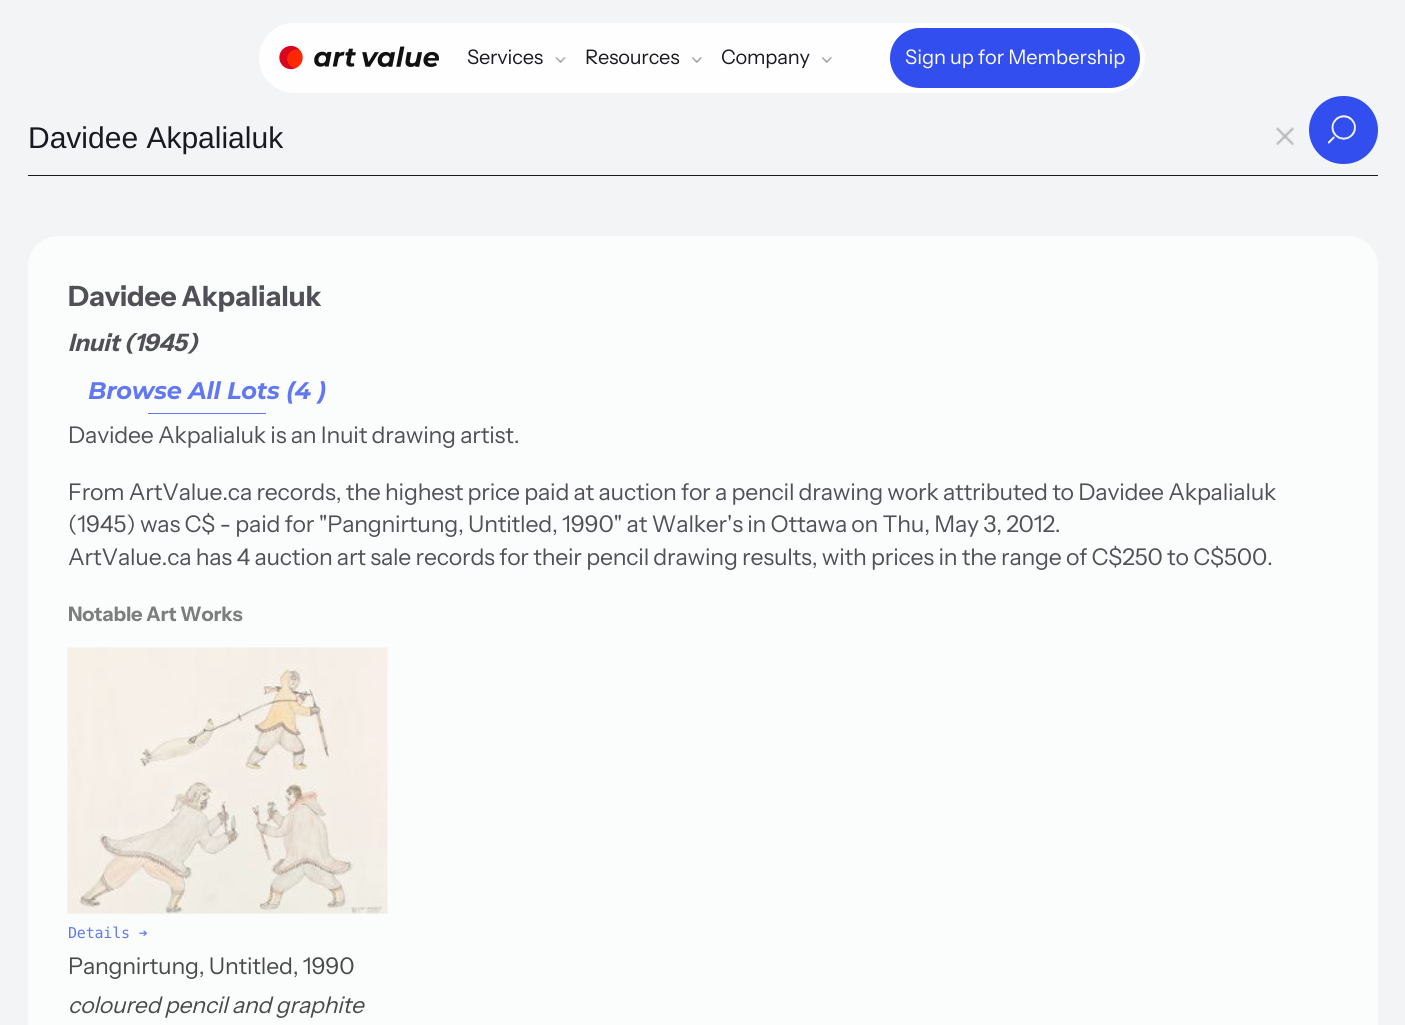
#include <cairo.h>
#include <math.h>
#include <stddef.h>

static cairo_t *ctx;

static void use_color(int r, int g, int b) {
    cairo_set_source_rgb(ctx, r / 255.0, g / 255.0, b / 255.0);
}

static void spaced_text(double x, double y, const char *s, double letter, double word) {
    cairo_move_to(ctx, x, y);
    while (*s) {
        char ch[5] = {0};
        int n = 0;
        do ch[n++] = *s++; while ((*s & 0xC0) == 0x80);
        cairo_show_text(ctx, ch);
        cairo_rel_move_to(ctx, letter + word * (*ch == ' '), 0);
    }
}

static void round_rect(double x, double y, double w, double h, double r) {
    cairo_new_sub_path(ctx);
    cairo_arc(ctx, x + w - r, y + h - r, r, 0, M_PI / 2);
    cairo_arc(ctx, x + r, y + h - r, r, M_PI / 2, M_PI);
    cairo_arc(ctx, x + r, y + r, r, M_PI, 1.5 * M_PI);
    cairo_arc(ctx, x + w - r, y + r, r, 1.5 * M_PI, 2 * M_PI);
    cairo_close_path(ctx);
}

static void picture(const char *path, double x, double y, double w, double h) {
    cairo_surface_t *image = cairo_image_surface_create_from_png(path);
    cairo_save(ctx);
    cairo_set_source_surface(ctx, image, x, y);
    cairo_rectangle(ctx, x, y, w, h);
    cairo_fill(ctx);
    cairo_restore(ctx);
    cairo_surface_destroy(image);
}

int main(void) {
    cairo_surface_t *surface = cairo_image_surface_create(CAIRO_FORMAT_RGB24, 1405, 1025);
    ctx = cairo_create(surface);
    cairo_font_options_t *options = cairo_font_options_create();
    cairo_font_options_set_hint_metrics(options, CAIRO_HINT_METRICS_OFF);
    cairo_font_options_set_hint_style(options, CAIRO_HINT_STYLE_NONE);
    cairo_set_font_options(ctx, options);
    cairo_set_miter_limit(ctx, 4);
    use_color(243, 244, 246);
    cairo_paint(ctx);
    use_color(254, 254, 254);
    round_rect(259, 23, 886, 70, 35);
    cairo_fill(ctx);
    picture("img1.png", 279, 45, 160, 25);
    cairo_select_font_face(ctx, "Instrument Sans", CAIRO_FONT_SLANT_NORMAL, CAIRO_FONT_WEIGHT_NORMAL);
    cairo_set_font_size(ctx, 20);
    use_color(25, 25, 33);
    spaced_text(467, 64, "Services", -0.2, 0);
    picture("img2.png", 555, 57, 11, 6);
    spaced_text(585, 64, "Resources", -0.2, 0);
    picture("img3.png", 691, 57, 11, 6);
    spaced_text(721, 64, "Company", -0.2, 0);
    picture("img3.png", 821, 57, 11, 6);
    use_color(50, 78, 239);
    round_rect(890, 28, 250, 60, 30);
    cairo_fill(ctx);
    use_color(255, 255, 255);
    cairo_move_to(ctx, 905, 64);
    cairo_show_text(ctx, "Sign up for Membership");
    use_color(25, 25, 33);
    cairo_rectangle(ctx, 28, 175, 1350, 1);
    cairo_fill(ctx);
    cairo_select_font_face(ctx, "Liberation Sans", CAIRO_FONT_SLANT_NORMAL, CAIRO_FONT_WEIGHT_NORMAL);
    cairo_set_font_size(ctx, 30);
    cairo_move_to(ctx, 28, 148);
    cairo_show_text(ctx, "Davidee Akpalialuk");
    picture("img4.png", 1276, 127, 18, 19);
    use_color(50, 78, 239);
    round_rect(1309, 96, 69, 68, 34);
    cairo_fill(ctx);
    picture("img5.png", 1327, 115, 29, 29);
    use_color(251, 252, 252);
    round_rect(28, 236, 1350, 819, 30);
    cairo_fill(ctx);
    cairo_select_font_face(ctx, "Instrument Sans", CAIRO_FONT_SLANT_NORMAL, CAIRO_FONT_WEIGHT_BOLD);
    cairo_set_font_size(ctx, 28);
    use_color(80, 80, 86);
    spaced_text(68, 306, "Davidee Akpalialuk", -0.2, 0);
    cairo_select_font_face(ctx, "Instrument Sans", CAIRO_FONT_SLANT_ITALIC, CAIRO_FONT_WEIGHT_BOLD);
    cairo_set_font_size(ctx, 24);
    spaced_text(68, 351, "Inuit (1945)", -0.2, 0);
    cairo_select_font_face(ctx, "Montserrat", CAIRO_FONT_SLANT_ITALIC, CAIRO_FONT_WEIGHT_BOLD);
    use_color(98, 120, 241);
    spaced_text(88, 399, "Browse All Lots (4 )", -0.2, 0);
    cairo_rectangle(ctx, 148, 413, 118, 1);
    cairo_fill(ctx);
    cairo_select_font_face(ctx, "Instrument Sans", CAIRO_FONT_SLANT_NORMAL, CAIRO_FONT_WEIGHT_NORMAL);
    cairo_set_font_size(ctx, 23);
    use_color(80, 80, 86);
    spaced_text(68, 443, "Davidee Akpalialuk is an Inuit drawing artist.", -0.2, 0);
    spaced_text(68, 500, "From ArtValue.ca records, the highest price paid at auction for a pencil drawing work attributed to Davidee Akpalialuk", -0.2, 0);
    spaced_text(68, 532, "(1945) was C$ - paid for \"Pangnirtung, Untitled, 1990\" at Walker's in Ottawa on Thu, May 3, 2012.", -0.2, 0);
    spaced_text(68, 565, "ArtValue.ca has 4 auction art sale records for their pencil drawing results, with prices in the range of C$250 to C$500.", -0.2, 0);
    cairo_select_font_face(ctx, "Instrument Sans", CAIRO_FONT_SLANT_NORMAL, CAIRO_FONT_WEIGHT_BOLD);
    cairo_set_font_size(ctx, 20);
    use_color(125, 125, 125);
    spaced_text(68, 621, "Notable Art Works", -0.2, 0);
    picture("img6.png", 67, 647, 321, 267);
    cairo_select_font_face(ctx, "DejaVu Sans Mono", CAIRO_FONT_SLANT_NORMAL, CAIRO_FONT_WEIGHT_NORMAL);
    cairo_set_font_size(ctx, 15);
    use_color(98, 120, 241);
    spaced_text(68, 938, "Details ➔", -0.2, 0);
    cairo_select_font_face(ctx, "Instrument Sans", CAIRO_FONT_SLANT_NORMAL, CAIRO_FONT_WEIGHT_NORMAL);
    cairo_set_font_size(ctx, 23);
    use_color(74, 74, 74);
    spaced_text(68, 974, "Pangnirtung, Untitled, 1990", -0.2, 0);
    cairo_select_font_face(ctx, "Instrument Sans", CAIRO_FONT_SLANT_ITALIC, CAIRO_FONT_WEIGHT_NORMAL);
    spaced_text(68, 1013, "coloured pencil and graphite", -0.2, 0);
    cairo_surface_write_to_png(surface, "result.png");
    cairo_font_options_destroy(options);
    cairo_destroy(ctx);
    cairo_surface_destroy(surface);
    return 0;
}
